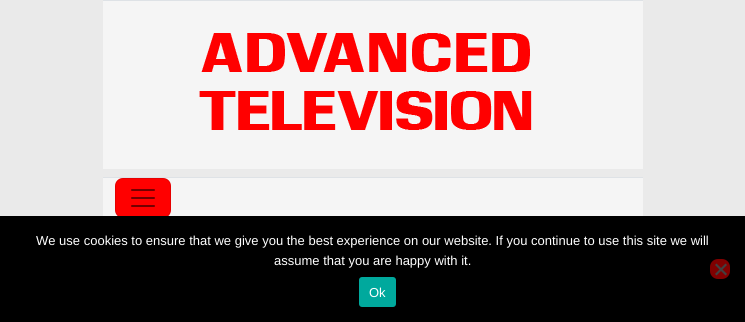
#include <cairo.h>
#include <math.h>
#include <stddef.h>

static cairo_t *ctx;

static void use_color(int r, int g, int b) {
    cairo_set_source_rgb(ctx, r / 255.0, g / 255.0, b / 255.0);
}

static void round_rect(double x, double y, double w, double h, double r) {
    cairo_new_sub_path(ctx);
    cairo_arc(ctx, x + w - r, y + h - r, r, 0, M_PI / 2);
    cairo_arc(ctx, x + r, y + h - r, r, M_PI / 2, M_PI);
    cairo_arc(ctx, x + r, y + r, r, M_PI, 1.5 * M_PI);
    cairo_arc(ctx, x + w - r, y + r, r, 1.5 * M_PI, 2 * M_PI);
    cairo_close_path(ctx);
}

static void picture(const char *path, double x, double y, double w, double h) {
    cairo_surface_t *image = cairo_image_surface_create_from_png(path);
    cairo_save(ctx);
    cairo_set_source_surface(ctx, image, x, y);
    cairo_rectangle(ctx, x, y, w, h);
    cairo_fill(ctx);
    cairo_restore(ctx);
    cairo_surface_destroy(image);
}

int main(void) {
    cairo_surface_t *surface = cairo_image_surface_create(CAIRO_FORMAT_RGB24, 745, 322);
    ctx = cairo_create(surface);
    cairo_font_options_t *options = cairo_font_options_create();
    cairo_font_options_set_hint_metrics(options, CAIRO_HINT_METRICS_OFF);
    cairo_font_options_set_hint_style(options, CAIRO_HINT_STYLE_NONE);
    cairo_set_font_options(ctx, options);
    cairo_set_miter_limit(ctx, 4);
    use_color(234, 234, 234);
    cairo_paint(ctx);
    use_color(245, 245, 245);
    cairo_rectangle(ctx, 103, 1, 540, 168);
    cairo_fill(ctx);
    use_color(222, 226, 230);
    cairo_rectangle(ctx, 103, 0, 540, 1);
    cairo_fill(ctx);
    picture("img1.png", 199, 33, 333, 97);
    use_color(245, 245, 245);
    cairo_rectangle(ctx, 103, 178, 540, 38);
    cairo_fill(ctx);
    use_color(222, 226, 230);
    cairo_rectangle(ctx, 103, 177, 540, 1);
    cairo_fill(ctx);
    use_color(255, 0, 0);
    round_rect(115, 178, 56, 40, 8);
    cairo_fill(ctx);
    round_rect(115.5, 178.5, 55, 39, 7.5);
    cairo_set_source_rgba(ctx, 0, 0, 0, 0.1);
    cairo_set_line_width(ctx, 1);
    cairo_stroke(ctx);
    picture("img2.png", 131, 189, 24, 18);
    use_color(0, 0, 0);
    cairo_rectangle(ctx, 0, 216, 745, 106);
    cairo_fill(ctx);
    cairo_select_font_face(ctx, "Liberation Sans", CAIRO_FONT_SLANT_NORMAL, CAIRO_FONT_WEIGHT_NORMAL);
    cairo_set_font_size(ctx, 13);
    use_color(255, 255, 255);
    cairo_move_to(ctx, 36, 245);
    cairo_show_text(ctx, "We use cookies to ensure that we give you the best experience on our website. If you continue to use this site we will");
    cairo_move_to(ctx, 274, 265);
    cairo_show_text(ctx, "assume that you are happy with it.");
    use_color(128, 0, 0);
    round_rect(710, 259, 20, 20, 8);
    cairo_fill(ctx);
    use_color(64, 64, 64);
    cairo_new_path(ctx);
    cairo_move_to(ctx, 725.5, 263.5);
    cairo_line_to(ctx, 727, 265);
    cairo_line_to(ctx, 716.5, 275.5);
    cairo_line_to(ctx, 715, 274);
    cairo_close_path(ctx);
    cairo_fill(ctx);
    cairo_new_path(ctx);
    cairo_move_to(ctx, 715, 265);
    cairo_line_to(ctx, 716.5, 263.5);
    cairo_line_to(ctx, 727, 274);
    cairo_line_to(ctx, 725.5, 275.5);
    cairo_close_path(ctx);
    cairo_fill(ctx);
    use_color(0, 169, 157);
    round_rect(359, 277, 37, 30, 3);
    cairo_fill(ctx);
    use_color(255, 255, 255);
    cairo_move_to(ctx, 369, 297);
    cairo_show_text(ctx, "Ok");
    cairo_surface_write_to_png(surface, "result.png");
    cairo_font_options_destroy(options);
    cairo_destroy(ctx);
    cairo_surface_destroy(surface);
    return 0;
}
